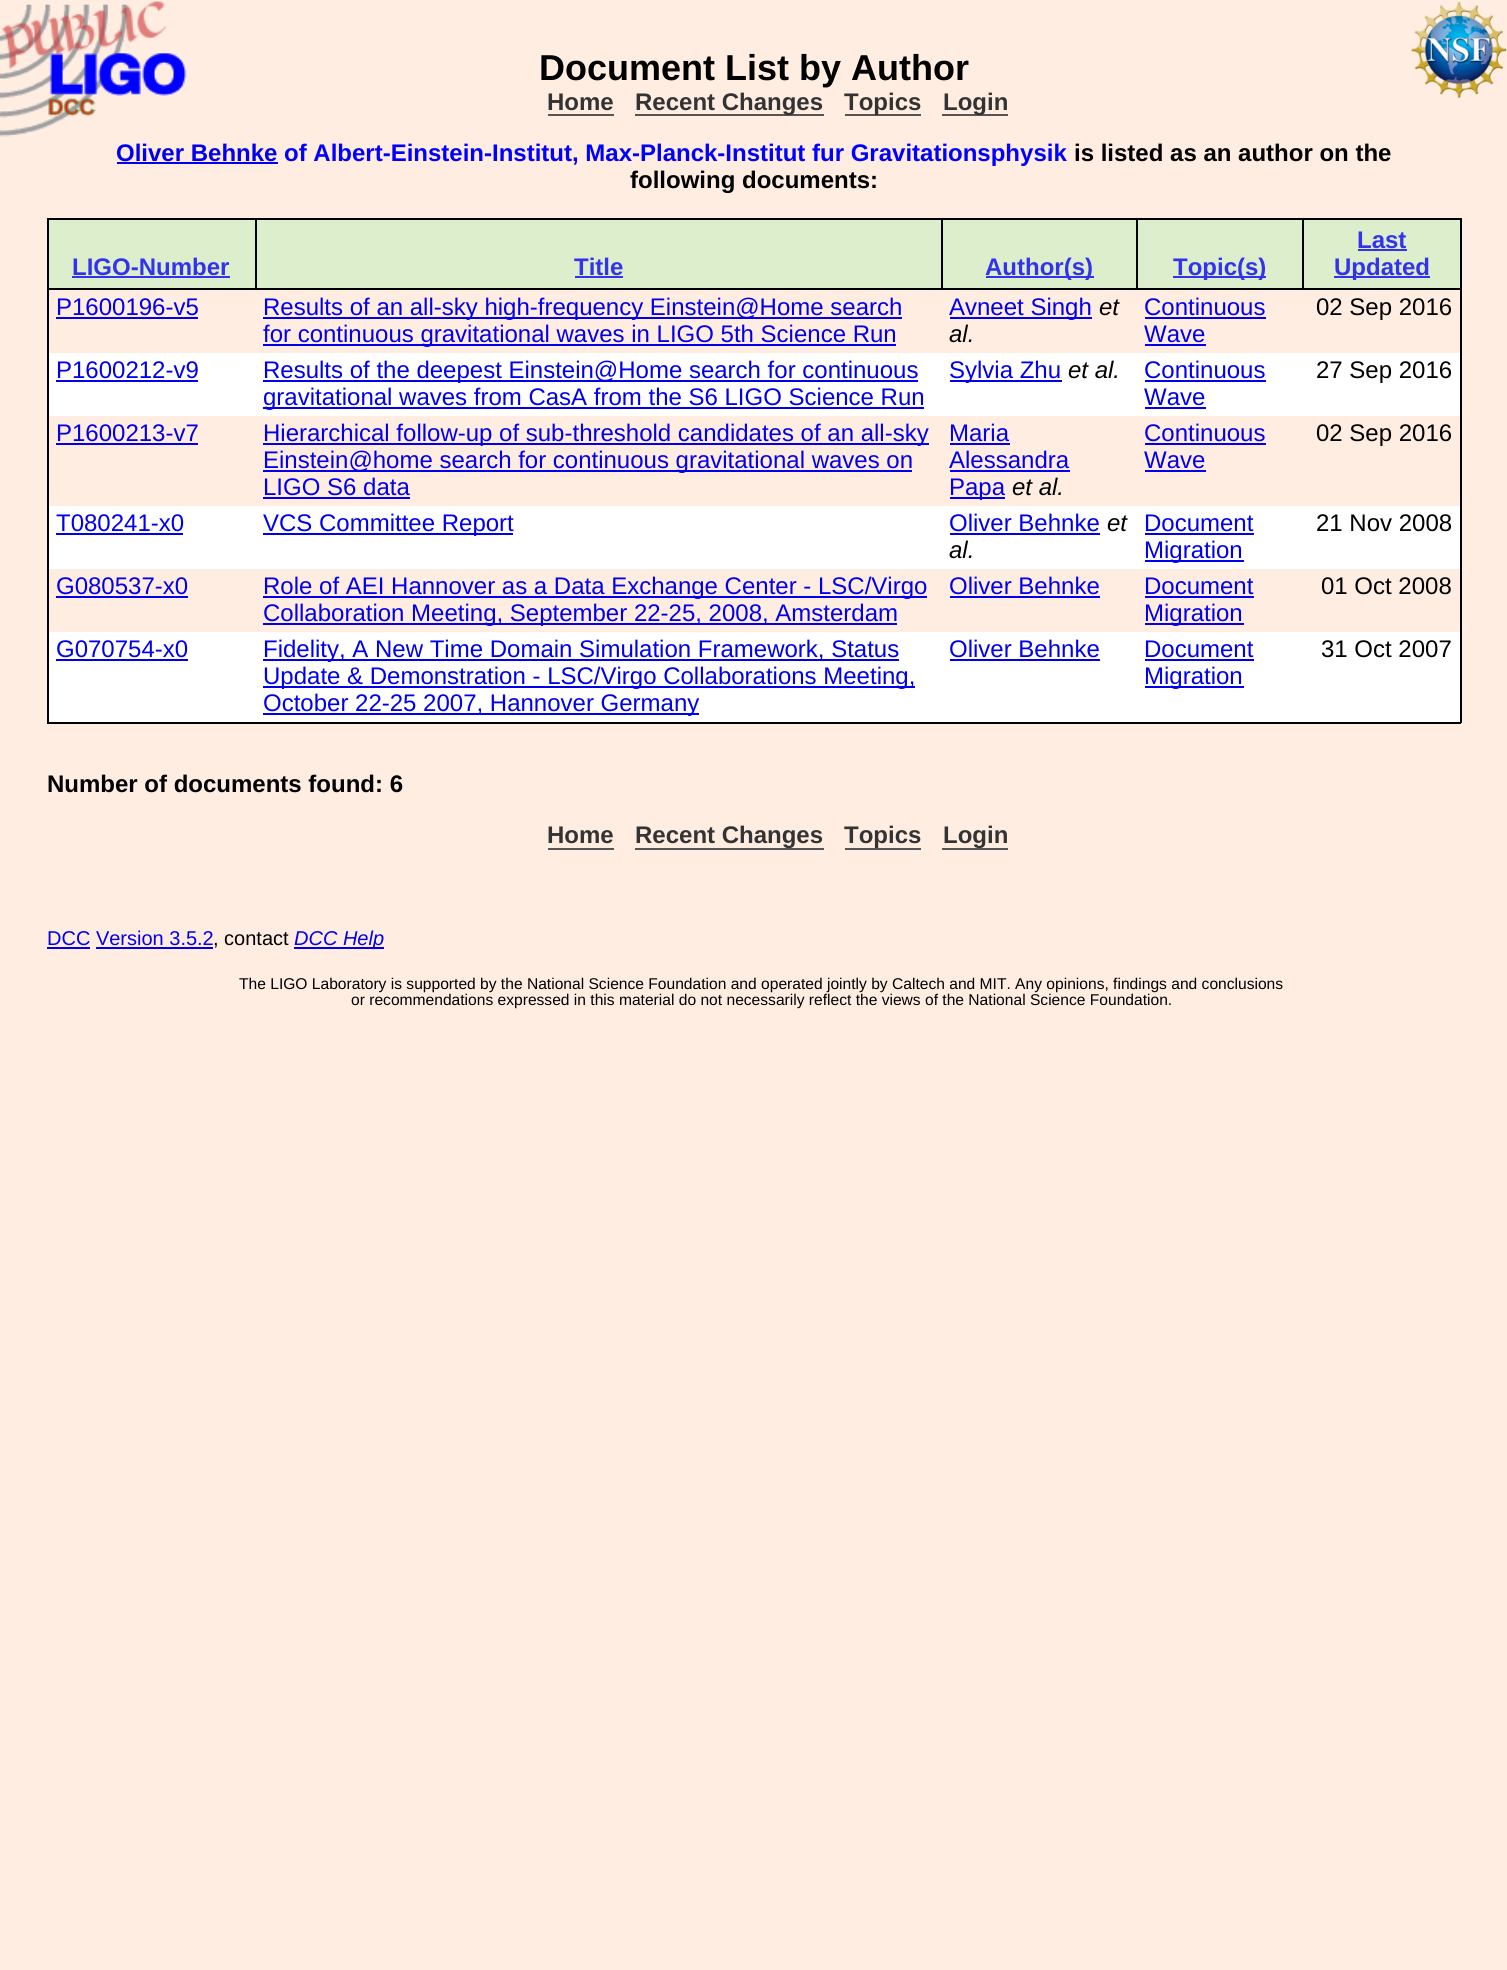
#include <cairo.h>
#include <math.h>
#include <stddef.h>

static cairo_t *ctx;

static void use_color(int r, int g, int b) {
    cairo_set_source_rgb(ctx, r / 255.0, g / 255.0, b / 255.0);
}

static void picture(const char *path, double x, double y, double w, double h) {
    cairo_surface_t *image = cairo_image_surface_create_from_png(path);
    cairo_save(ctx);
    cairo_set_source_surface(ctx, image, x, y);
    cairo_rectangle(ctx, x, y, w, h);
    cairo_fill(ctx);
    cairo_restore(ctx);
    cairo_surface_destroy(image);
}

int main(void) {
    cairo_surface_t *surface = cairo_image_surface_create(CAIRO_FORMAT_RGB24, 1507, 1970);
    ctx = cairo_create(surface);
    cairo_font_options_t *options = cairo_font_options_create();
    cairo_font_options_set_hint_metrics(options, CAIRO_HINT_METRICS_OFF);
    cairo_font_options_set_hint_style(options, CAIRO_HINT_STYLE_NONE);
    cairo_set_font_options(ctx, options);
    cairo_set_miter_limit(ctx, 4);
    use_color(255, 237, 226);
    cairo_paint(ctx);
    picture("img1.png", 0, 1, 1507, 136);
    cairo_select_font_face(ctx, "Liberation Sans", CAIRO_FONT_SLANT_NORMAL, CAIRO_FONT_WEIGHT_BOLD);
    cairo_set_font_size(ctx, 36);
    use_color(0, 0, 0);
    cairo_move_to(ctx, 539, 80);
    cairo_show_text(ctx, "Document List by Author");
    cairo_set_font_size(ctx, 24);
    use_color(51, 51, 51);
    cairo_move_to(ctx, 547, 110);
    cairo_show_text(ctx, "Home");
    use_color(85, 85, 85);
    cairo_rectangle(ctx, 548, 114, 66, 2);
    cairo_fill(ctx);
    cairo_rectangle(ctx, 635, 114, 189, 2);
    cairo_fill(ctx);
    use_color(51, 51, 51);
    cairo_move_to(ctx, 635, 110);
    cairo_show_text(ctx, "Recent Changes");
    use_color(85, 85, 85);
    cairo_rectangle(ctx, 845, 114, 76, 2);
    cairo_fill(ctx);
    use_color(51, 51, 51);
    cairo_move_to(ctx, 844, 110);
    cairo_show_text(ctx, "Topics");
    use_color(85, 85, 85);
    cairo_rectangle(ctx, 942, 114, 66, 2);
    cairo_fill(ctx);
    use_color(51, 51, 51);
    cairo_move_to(ctx, 943, 110);
    cairo_show_text(ctx, "Login");
    use_color(0, 0, 238);
    cairo_move_to(ctx, 116, 161);
    cairo_show_text(ctx, "Oliver Behnke");
    cairo_rectangle(ctx, 117, 162, 161, 2);
    cairo_fill(ctx);
    use_color(0, 0, 255);
    cairo_move_to(ctx, 284, 161);
    cairo_show_text(ctx, "of Albert-Einstein-Institut, Max-Planck-Institut fur Gravitationsphysik");
    use_color(0, 0, 0);
    cairo_move_to(ctx, 1074, 161);
    cairo_show_text(ctx, "is listed as an author on the");
    cairo_move_to(ctx, 630, 188);
    cairo_show_text(ctx, "following documents:");
    cairo_rectangle(ctx, 47, 218, 1414, 2);
    cairo_fill(ctx);
    cairo_rectangle(ctx, 1460, 218, 2, 505);
    cairo_fill(ctx);
    cairo_rectangle(ctx, 47, 722, 1414, 2);
    cairo_fill(ctx);
    cairo_rectangle(ctx, 47, 218, 2, 505);
    cairo_fill(ctx);
    use_color(221, 238, 204);
    cairo_rectangle(ctx, 49, 220, 206, 68);
    cairo_fill(ctx);
    use_color(0, 0, 0);
    cairo_rectangle(ctx, 1302, 288, 159, 2);
    cairo_fill(ctx);
    cairo_rectangle(ctx, 1302, 218, 2, 72);
    cairo_fill(ctx);
    cairo_rectangle(ctx, 1136, 288, 168, 2);
    cairo_fill(ctx);
    cairo_rectangle(ctx, 1136, 218, 2, 72);
    cairo_fill(ctx);
    cairo_rectangle(ctx, 941, 288, 196, 2);
    cairo_fill(ctx);
    cairo_rectangle(ctx, 941, 218, 2, 72);
    cairo_fill(ctx);
    cairo_rectangle(ctx, 255, 288, 687, 2);
    cairo_fill(ctx);
    cairo_rectangle(ctx, 255, 218, 2, 72);
    cairo_fill(ctx);
    cairo_rectangle(ctx, 47, 288, 210, 2);
    cairo_fill(ctx);
    use_color(51, 51, 238);
    cairo_move_to(ctx, 72, 275);
    cairo_show_text(ctx, "LIGO-Number");
    cairo_rectangle(ctx, 72, 276, 158, 2);
    cairo_fill(ctx);
    use_color(221, 238, 204);
    cairo_rectangle(ctx, 257, 220, 684, 68);
    cairo_fill(ctx);
    use_color(51, 51, 238);
    cairo_move_to(ctx, 574, 275);
    cairo_show_text(ctx, "Title");
    cairo_rectangle(ctx, 575, 276, 48, 2);
    cairo_fill(ctx);
    use_color(221, 238, 204);
    cairo_rectangle(ctx, 943, 220, 193, 68);
    cairo_fill(ctx);
    use_color(51, 51, 238);
    cairo_rectangle(ctx, 986, 276, 108, 2);
    cairo_fill(ctx);
    cairo_move_to(ctx, 985, 275);
    cairo_show_text(ctx, "Author(s)");
    use_color(221, 238, 204);
    cairo_rectangle(ctx, 1138, 220, 164, 68);
    cairo_fill(ctx);
    use_color(51, 51, 238);
    cairo_rectangle(ctx, 1173, 276, 93, 2);
    cairo_fill(ctx);
    cairo_move_to(ctx, 1173, 275);
    cairo_show_text(ctx, "Topic(s)");
    use_color(221, 238, 204);
    cairo_rectangle(ctx, 1304, 220, 156, 68);
    cairo_fill(ctx);
    use_color(51, 51, 238);
    cairo_move_to(ctx, 1357, 248);
    cairo_show_text(ctx, "Last");
    cairo_rectangle(ctx, 1358, 249, 49, 2);
    cairo_fill(ctx);
    cairo_rectangle(ctx, 1334, 276, 96, 2);
    cairo_fill(ctx);
    cairo_move_to(ctx, 1334, 275);
    cairo_show_text(ctx, "Updated");
    cairo_select_font_face(ctx, "Liberation Sans", CAIRO_FONT_SLANT_NORMAL, CAIRO_FONT_WEIGHT_NORMAL);
    use_color(0, 0, 238);
    cairo_move_to(ctx, 56, 315);
    cairo_show_text(ctx, "P1600196-v5");
    cairo_rectangle(ctx, 56, 317, 142, 2);
    cairo_fill(ctx);
    cairo_rectangle(ctx, 263, 317, 639, 2);
    cairo_fill(ctx);
    cairo_move_to(ctx, 263, 315);
    cairo_show_text(ctx, "Results of an all-sky high-frequency Einstein@Home search");
    cairo_rectangle(ctx, 263, 344, 633, 2);
    cairo_fill(ctx);
    cairo_move_to(ctx, 263, 342);
    cairo_show_text(ctx, "for continuous gravitational waves in LIGO 5th Science Run");
    cairo_rectangle(ctx, 950, 317, 142, 2);
    cairo_fill(ctx);
    cairo_move_to(ctx, 949, 315);
    cairo_show_text(ctx, "Avneet Singh");
    cairo_select_font_face(ctx, "Liberation Sans", CAIRO_FONT_SLANT_ITALIC, CAIRO_FONT_WEIGHT_NORMAL);
    use_color(0, 0, 0);
    cairo_move_to(ctx, 1099, 315);
    cairo_show_text(ctx, "et");
    cairo_move_to(ctx, 949, 342);
    cairo_show_text(ctx, "al.");
    cairo_select_font_face(ctx, "Liberation Sans", CAIRO_FONT_SLANT_NORMAL, CAIRO_FONT_WEIGHT_NORMAL);
    use_color(0, 0, 238);
    cairo_move_to(ctx, 1144, 315);
    cairo_show_text(ctx, "Continuous");
    cairo_rectangle(ctx, 1145, 317, 121, 2);
    cairo_fill(ctx);
    cairo_move_to(ctx, 1144, 342);
    cairo_show_text(ctx, "Wave");
    cairo_rectangle(ctx, 1145, 344, 61, 2);
    cairo_fill(ctx);
    use_color(0, 0, 0);
    cairo_move_to(ctx, 1316, 315);
    cairo_show_text(ctx, "02 Sep 2016");
    use_color(255, 255, 255);
    cairo_rectangle(ctx, 49, 353, 1411, 63);
    cairo_fill(ctx);
    use_color(0, 0, 238);
    cairo_move_to(ctx, 56, 378);
    cairo_show_text(ctx, "P1600212-v9");
    cairo_rectangle(ctx, 56, 380, 142, 2);
    cairo_fill(ctx);
    cairo_rectangle(ctx, 263, 380, 655, 2);
    cairo_fill(ctx);
    cairo_move_to(ctx, 263, 378);
    cairo_show_text(ctx, "Results of the deepest Einstein@Home search for continuous");
    cairo_rectangle(ctx, 263, 407, 661, 2);
    cairo_fill(ctx);
    cairo_move_to(ctx, 263, 405);
    cairo_show_text(ctx, "gravitational waves from CasA from the S6 LIGO Science Run");
    cairo_rectangle(ctx, 950, 380, 112, 2);
    cairo_fill(ctx);
    cairo_move_to(ctx, 949, 378);
    cairo_show_text(ctx, "Sylvia Zhu");
    cairo_select_font_face(ctx, "Liberation Sans", CAIRO_FONT_SLANT_ITALIC, CAIRO_FONT_WEIGHT_NORMAL);
    use_color(0, 0, 0);
    cairo_move_to(ctx, 1068, 378);
    cairo_show_text(ctx, "et al.");
    cairo_select_font_face(ctx, "Liberation Sans", CAIRO_FONT_SLANT_NORMAL, CAIRO_FONT_WEIGHT_NORMAL);
    use_color(0, 0, 238);
    cairo_move_to(ctx, 1144, 378);
    cairo_show_text(ctx, "Continuous");
    cairo_rectangle(ctx, 1145, 380, 121, 2);
    cairo_fill(ctx);
    cairo_move_to(ctx, 1144, 405);
    cairo_show_text(ctx, "Wave");
    cairo_rectangle(ctx, 1145, 407, 61, 2);
    cairo_fill(ctx);
    use_color(0, 0, 0);
    cairo_move_to(ctx, 1316, 378);
    cairo_show_text(ctx, "27 Sep 2016");
    use_color(0, 0, 238);
    cairo_move_to(ctx, 56, 441);
    cairo_show_text(ctx, "P1600213-v7");
    cairo_rectangle(ctx, 56, 443, 142, 2);
    cairo_fill(ctx);
    cairo_rectangle(ctx, 263, 443, 666, 2);
    cairo_fill(ctx);
    cairo_move_to(ctx, 263, 441);
    cairo_show_text(ctx, "Hierarchical follow-up of sub-threshold candidates of an all-sky");
    cairo_rectangle(ctx, 263, 470, 649, 2);
    cairo_fill(ctx);
    cairo_move_to(ctx, 263, 468);
    cairo_show_text(ctx, "Einstein@home search for continuous gravitational waves on");
    cairo_move_to(ctx, 263, 495);
    cairo_show_text(ctx, "LIGO S6 data");
    cairo_rectangle(ctx, 263, 497, 147, 2);
    cairo_fill(ctx);
    cairo_move_to(ctx, 949, 441);
    cairo_show_text(ctx, "Maria");
    cairo_rectangle(ctx, 950, 443, 60, 2);
    cairo_fill(ctx);
    cairo_move_to(ctx, 949, 468);
    cairo_show_text(ctx, "Alessandra");
    cairo_rectangle(ctx, 950, 470, 120, 2);
    cairo_fill(ctx);
    cairo_rectangle(ctx, 950, 497, 55, 2);
    cairo_fill(ctx);
    cairo_move_to(ctx, 949, 495);
    cairo_show_text(ctx, "Papa");
    cairo_select_font_face(ctx, "Liberation Sans", CAIRO_FONT_SLANT_ITALIC, CAIRO_FONT_WEIGHT_NORMAL);
    use_color(0, 0, 0);
    cairo_move_to(ctx, 1012, 495);
    cairo_show_text(ctx, "et al.");
    cairo_select_font_face(ctx, "Liberation Sans", CAIRO_FONT_SLANT_NORMAL, CAIRO_FONT_WEIGHT_NORMAL);
    use_color(0, 0, 238);
    cairo_move_to(ctx, 1144, 441);
    cairo_show_text(ctx, "Continuous");
    cairo_rectangle(ctx, 1145, 443, 121, 2);
    cairo_fill(ctx);
    cairo_move_to(ctx, 1144, 468);
    cairo_show_text(ctx, "Wave");
    cairo_rectangle(ctx, 1145, 470, 61, 2);
    cairo_fill(ctx);
    use_color(0, 0, 0);
    cairo_move_to(ctx, 1316, 441);
    cairo_show_text(ctx, "02 Sep 2016");
    use_color(255, 255, 255);
    cairo_rectangle(ctx, 49, 506, 1411, 63);
    cairo_fill(ctx);
    use_color(0, 0, 238);
    cairo_move_to(ctx, 56, 531);
    cairo_show_text(ctx, "T080241-x0");
    cairo_rectangle(ctx, 56, 533, 127, 2);
    cairo_fill(ctx);
    cairo_rectangle(ctx, 263, 533, 250, 2);
    cairo_fill(ctx);
    cairo_move_to(ctx, 263, 531);
    cairo_show_text(ctx, "VCS Committee Report");
    cairo_move_to(ctx, 949, 531);
    cairo_show_text(ctx, "Oliver Behnke");
    cairo_rectangle(ctx, 950, 533, 150, 2);
    cairo_fill(ctx);
    cairo_select_font_face(ctx, "Liberation Sans", CAIRO_FONT_SLANT_ITALIC, CAIRO_FONT_WEIGHT_NORMAL);
    use_color(0, 0, 0);
    cairo_move_to(ctx, 1107, 531);
    cairo_show_text(ctx, "et");
    cairo_move_to(ctx, 949, 558);
    cairo_show_text(ctx, "al.");
    cairo_select_font_face(ctx, "Liberation Sans", CAIRO_FONT_SLANT_NORMAL, CAIRO_FONT_WEIGHT_NORMAL);
    use_color(0, 0, 238);
    cairo_move_to(ctx, 1144, 531);
    cairo_show_text(ctx, "Document");
    cairo_rectangle(ctx, 1145, 533, 109, 2);
    cairo_fill(ctx);
    cairo_rectangle(ctx, 1145, 560, 99, 2);
    cairo_fill(ctx);
    cairo_move_to(ctx, 1144, 558);
    cairo_show_text(ctx, "Migration");
    use_color(0, 0, 0);
    cairo_move_to(ctx, 1316, 531);
    cairo_show_text(ctx, "21 Nov 2008");
    use_color(0, 0, 238);
    cairo_move_to(ctx, 56, 594);
    cairo_show_text(ctx, "G080537-x0");
    cairo_rectangle(ctx, 56, 596, 132, 2);
    cairo_fill(ctx);
    cairo_rectangle(ctx, 263, 596, 664, 2);
    cairo_fill(ctx);
    cairo_move_to(ctx, 263, 594);
    cairo_show_text(ctx, "Role of AEI Hannover as a Data Exchange Center - LSC/Virgo");
    cairo_rectangle(ctx, 263, 623, 634, 2);
    cairo_fill(ctx);
    cairo_move_to(ctx, 263, 621);
    cairo_show_text(ctx, "Collaboration Meeting, September 22-25, 2008, Amsterdam");
    cairo_move_to(ctx, 949, 594);
    cairo_show_text(ctx, "Oliver Behnke");
    cairo_rectangle(ctx, 950, 596, 150, 2);
    cairo_fill(ctx);
    cairo_move_to(ctx, 1144, 594);
    cairo_show_text(ctx, "Document");
    cairo_rectangle(ctx, 1145, 596, 109, 2);
    cairo_fill(ctx);
    cairo_rectangle(ctx, 1145, 623, 99, 2);
    cairo_fill(ctx);
    cairo_move_to(ctx, 1144, 621);
    cairo_show_text(ctx, "Migration");
    use_color(0, 0, 0);
    cairo_move_to(ctx, 1321, 594);
    cairo_show_text(ctx, "01 Oct 2008");
    use_color(255, 255, 255);
    cairo_rectangle(ctx, 49, 632, 1411, 90);
    cairo_fill(ctx);
    use_color(0, 0, 238);
    cairo_move_to(ctx, 56, 657);
    cairo_show_text(ctx, "G070754-x0");
    cairo_rectangle(ctx, 56, 659, 132, 2);
    cairo_fill(ctx);
    cairo_rectangle(ctx, 263, 659, 636, 2);
    cairo_fill(ctx);
    cairo_move_to(ctx, 263, 657);
    cairo_show_text(ctx, "Fidelity, A New Time Domain Simulation Framework, Status");
    cairo_rectangle(ctx, 263, 686, 652, 2);
    cairo_fill(ctx);
    cairo_move_to(ctx, 263, 684);
    cairo_show_text(ctx, "Update & Demonstration - LSC/Virgo Collaborations Meeting,");
    cairo_rectangle(ctx, 263, 713, 436, 2);
    cairo_fill(ctx);
    cairo_move_to(ctx, 263, 711);
    cairo_show_text(ctx, "October 22-25 2007, Hannover Germany");
    cairo_move_to(ctx, 949, 657);
    cairo_show_text(ctx, "Oliver Behnke");
    cairo_rectangle(ctx, 950, 659, 150, 2);
    cairo_fill(ctx);
    cairo_move_to(ctx, 1144, 657);
    cairo_show_text(ctx, "Document");
    cairo_rectangle(ctx, 1145, 659, 109, 2);
    cairo_fill(ctx);
    cairo_rectangle(ctx, 1145, 686, 99, 2);
    cairo_fill(ctx);
    cairo_move_to(ctx, 1144, 684);
    cairo_show_text(ctx, "Migration");
    use_color(0, 0, 0);
    cairo_move_to(ctx, 1321, 657);
    cairo_show_text(ctx, "31 Oct 2007");
    cairo_select_font_face(ctx, "Liberation Sans", CAIRO_FONT_SLANT_NORMAL, CAIRO_FONT_WEIGHT_BOLD);
    cairo_move_to(ctx, 47, 792);
    cairo_show_text(ctx, "Number of documents found: 6");
    use_color(51, 51, 51);
    cairo_move_to(ctx, 547, 843);
    cairo_show_text(ctx, "Home");
    use_color(85, 85, 85);
    cairo_rectangle(ctx, 548, 848, 66, 2);
    cairo_fill(ctx);
    cairo_rectangle(ctx, 635, 848, 189, 2);
    cairo_fill(ctx);
    use_color(51, 51, 51);
    cairo_move_to(ctx, 635, 843);
    cairo_show_text(ctx, "Recent Changes");
    cairo_move_to(ctx, 844, 843);
    cairo_show_text(ctx, "Topics");
    use_color(85, 85, 85);
    cairo_rectangle(ctx, 845, 848, 76, 2);
    cairo_fill(ctx);
    cairo_rectangle(ctx, 942, 848, 66, 2);
    cairo_fill(ctx);
    use_color(51, 51, 51);
    cairo_move_to(ctx, 943, 843);
    cairo_show_text(ctx, "Login");
    cairo_select_font_face(ctx, "Liberation Sans", CAIRO_FONT_SLANT_NORMAL, CAIRO_FONT_WEIGHT_NORMAL);
    cairo_set_font_size(ctx, 20);
    use_color(0, 0, 238);
    cairo_move_to(ctx, 47, 945);
    cairo_show_text(ctx, "DCC Version 3.5.2");
    cairo_rectangle(ctx, 47, 947, 43, 2);
    cairo_fill(ctx);
    use_color(0, 0, 0);
    cairo_move_to(ctx, 213, 945);
    cairo_show_text(ctx, ", contact");
    use_color(0, 0, 238);
    cairo_rectangle(ctx, 96, 947, 117, 2);
    cairo_fill(ctx);
    cairo_rectangle(ctx, 294, 947, 90, 2);
    cairo_fill(ctx);
    cairo_select_font_face(ctx, "Liberation Sans", CAIRO_FONT_SLANT_ITALIC, CAIRO_FONT_WEIGHT_NORMAL);
    cairo_move_to(ctx, 294, 945);
    cairo_show_text(ctx, "DCC Help");
    cairo_select_font_face(ctx, "Liberation Sans", CAIRO_FONT_SLANT_NORMAL, CAIRO_FONT_WEIGHT_NORMAL);
    cairo_set_font_size(ctx, 15.6);
    use_color(0, 0, 0);
    cairo_move_to(ctx, 239, 989);
    cairo_show_text(ctx, "The LIGO Laboratory is supported by the National Science Foundation and operated jointly by Caltech and MIT. Any opinions, findings and conclusions");
    cairo_move_to(ctx, 351, 1005);
    cairo_show_text(ctx, "or recommendations expressed in this material do not necessarily reflect the views of the National Science Foundation.");
    cairo_surface_write_to_png(surface, "result.png");
    cairo_font_options_destroy(options);
    cairo_destroy(ctx);
    cairo_surface_destroy(surface);
    return 0;
}
